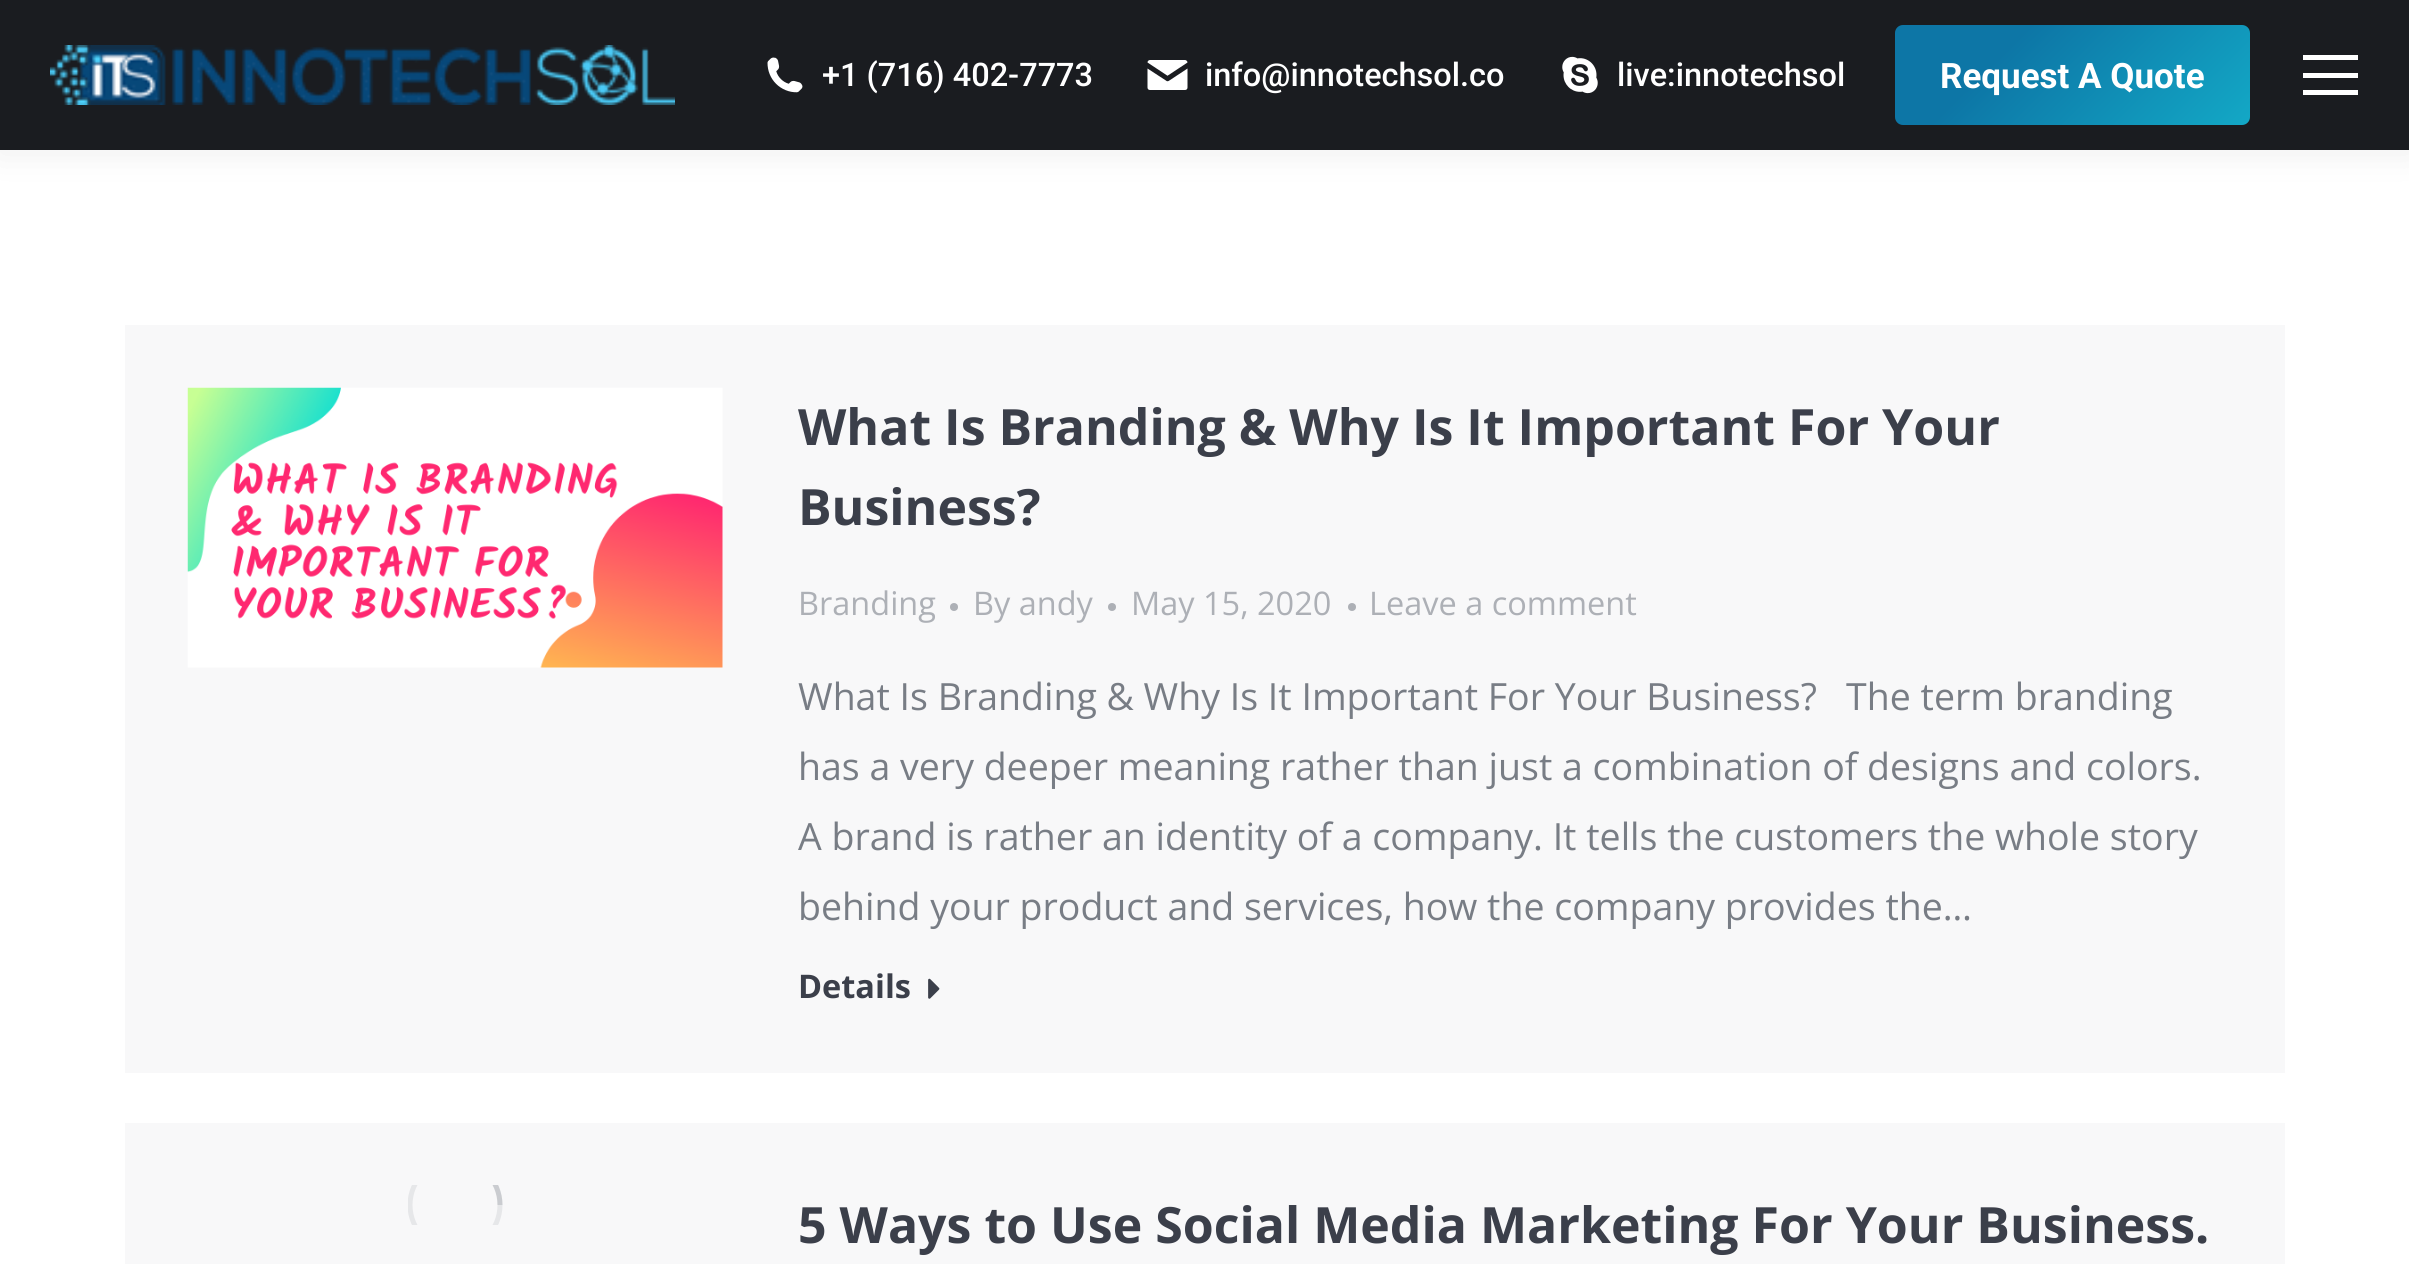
#include <cairo.h>
#include <math.h>
#include <stddef.h>

static cairo_t *ctx;

static void use_color(int r, int g, int b) {
    cairo_set_source_rgb(ctx, r / 255.0, g / 255.0, b / 255.0);
}

static void round_rect(double x, double y, double w, double h, double r) {
    cairo_new_sub_path(ctx);
    cairo_arc(ctx, x + w - r, y + h - r, r, 0, M_PI / 2);
    cairo_arc(ctx, x + r, y + h - r, r, M_PI / 2, M_PI);
    cairo_arc(ctx, x + r, y + r, r, M_PI, 1.5 * M_PI);
    cairo_arc(ctx, x + w - r, y + r, r, 1.5 * M_PI, 2 * M_PI);
    cairo_close_path(ctx);
}

static void shadow(double x, double y, double w, double h, double r, double blur, double alpha) {
    cairo_push_group_with_content(ctx, CAIRO_CONTENT_ALPHA);
    cairo_set_operator(ctx, CAIRO_OPERATOR_SOURCE);
    for (int i = 15; i >= -15 && fmin(w, h) + blur * i / 3 > 0; i -= 2) {
        double e = blur * i / 6;
        cairo_set_source_rgba(ctx, 0, 0, 0, alpha * erfc((i - 1) / 8.5) / 2);
        round_rect(x - e, y - e, w + 2 * e, h + 2 * e, fmax(0, fmin(r + e + blur * .6, fmin(w, h) / 2 + e)));
        cairo_fill(ctx);
    }
    cairo_pattern_t *soft = cairo_pop_group(ctx);
    cairo_mask(ctx, soft);
    cairo_pattern_destroy(soft);
}

static void picture(const char *path, double x, double y, double w, double h) {
    cairo_surface_t *image = cairo_image_surface_create_from_png(path);
    cairo_save(ctx);
    cairo_set_source_surface(ctx, image, x, y);
    cairo_rectangle(ctx, x, y, w, h);
    cairo_fill(ctx);
    cairo_restore(ctx);
    cairo_surface_destroy(image);
}

int main(void) {
    cairo_surface_t *surface = cairo_image_surface_create(CAIRO_FORMAT_RGB24, 2409, 1264);
    ctx = cairo_create(surface);
    cairo_font_options_t *options = cairo_font_options_create();
    cairo_font_options_set_hint_metrics(options, CAIRO_HINT_METRICS_OFF);
    cairo_font_options_set_hint_style(options, CAIRO_HINT_STYLE_NONE);
    cairo_set_font_options(ctx, options);
    cairo_set_miter_limit(ctx, 4);
    cairo_pattern_t *gradient;
    use_color(255, 255, 255);
    cairo_paint(ctx);
    use_color(0, 0, 0);
    shadow(-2, -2, 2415, 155, 0, 19, 0.07);
    use_color(26, 28, 32);
    cairo_rectangle(ctx, 0, 0, 2409, 150);
    cairo_fill(ctx);
    picture("img1.png", 50, 45, 625, 60);
    picture("img2.png", 767, 57, 36, 36);
    cairo_select_font_face(ctx, "Roboto Medium", CAIRO_FONT_SLANT_NORMAL, CAIRO_FONT_WEIGHT_NORMAL);
    cairo_set_font_size(ctx, 32.5);
    use_color(255, 255, 255);
    cairo_move_to(ctx, 822, 86);
    cairo_show_text(ctx, "+1 (716) 402-7773");
    picture("img3.png", 1147, 60, 41, 30);
    cairo_move_to(ctx, 1205, 86);
    cairo_show_text(ctx, "info@innotechsol.co");
    picture("img4.png", 1562, 56, 36, 38);
    cairo_move_to(ctx, 1617, 86);
    cairo_show_text(ctx, "live:innotechsol");
    gradient = cairo_pattern_create_linear(1959, -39, 2186, 189);
    cairo_pattern_add_color_stop_rgba(gradient, 0.3, 0.051, 0.463, 0.651, 1);
    cairo_pattern_add_color_stop_rgba(gradient, 1, 0.075, 0.659, 0.776, 1);
    cairo_set_source(ctx, gradient);
    cairo_pattern_destroy(gradient);
    round_rect(1895, 25, 355, 100, 8);
    cairo_fill(ctx);
    cairo_select_font_face(ctx, "Roboto", CAIRO_FONT_SLANT_NORMAL, CAIRO_FONT_WEIGHT_BOLD);
    cairo_set_font_size(ctx, 35);
    use_color(255, 255, 255);
    cairo_move_to(ctx, 1940, 88);
    cairo_show_text(ctx, "Request A Quote");
    cairo_rectangle(ctx, 2303, 55, 55, 5);
    cairo_fill(ctx);
    cairo_rectangle(ctx, 2303, 73, 55, 5);
    cairo_fill(ctx);
    cairo_rectangle(ctx, 2303, 90, 55, 5);
    cairo_fill(ctx);
    use_color(248, 248, 249);
    cairo_rectangle(ctx, 125, 325, 2160, 748);
    cairo_fill(ctx);
    picture("img5.png", 187, 387, 536, 281);
    cairo_select_font_face(ctx, "Open Sans", CAIRO_FONT_SLANT_NORMAL, CAIRO_FONT_WEIGHT_BOLD);
    cairo_set_font_size(ctx, 50);
    use_color(59, 63, 74);
    cairo_move_to(ctx, 798, 445);
    cairo_show_text(ctx, "What Is Branding & Why Is It Important For Your");
    cairo_move_to(ctx, 798, 525);
    cairo_show_text(ctx, "Business?");
    cairo_select_font_face(ctx, "Open Sans", CAIRO_FONT_SLANT_NORMAL, CAIRO_FONT_WEIGHT_NORMAL);
    cairo_set_font_size(ctx, 32.5);
    use_color(173, 176, 182);
    cairo_move_to(ctx, 798, 615);
    cairo_show_text(ctx, "Branding");
    cairo_new_path(ctx);
    cairo_arc(ctx, 954, 607, 4, 0, 2 * M_PI);
    cairo_fill(ctx);
    cairo_move_to(ctx, 973, 615);
    cairo_show_text(ctx, "By andy");
    cairo_new_path(ctx);
    cairo_arc(ctx, 1112, 607, 4, 0, 2 * M_PI);
    cairo_fill(ctx);
    cairo_move_to(ctx, 1131, 615);
    cairo_show_text(ctx, "May 15, 2020");
    cairo_new_path(ctx);
    cairo_arc(ctx, 1352, 607, 4, 0, 2 * M_PI);
    cairo_fill(ctx);
    cairo_move_to(ctx, 1369, 615);
    cairo_show_text(ctx, "Leave a comment");
    cairo_set_font_size(ctx, 37.5);
    use_color(120, 125, 133);
    cairo_move_to(ctx, 798, 710);
    cairo_show_text(ctx, "What Is Branding & Why Is It Important For Your Business?   The term branding");
    cairo_move_to(ctx, 798, 780);
    cairo_show_text(ctx, "has a very deeper meaning rather than just a combination of designs and colors.");
    cairo_move_to(ctx, 798, 850);
    cairo_show_text(ctx, "A brand is rather an identity of a company. It tells the customers the whole story");
    cairo_move_to(ctx, 798, 920);
    cairo_show_text(ctx, "behind your product and services, how the company provides the…");
    cairo_select_font_face(ctx, "Open Sans", CAIRO_FONT_SLANT_NORMAL, CAIRO_FONT_WEIGHT_BOLD);
    cairo_set_font_size(ctx, 32.5);
    use_color(59, 63, 74);
    cairo_move_to(ctx, 798, 998);
    cairo_show_text(ctx, "Details");
    picture("img6.png", 928, 978, 12, 21);
    use_color(248, 248, 249);
    cairo_rectangle(ctx, 125, 1123, 2160, 141);
    cairo_fill(ctx);
    cairo_save(ctx);
    cairo_rectangle(ctx, 408, 1185, 95, 40);
    cairo_clip(ctx);
    cairo_arc(ctx, 455, 1205, 45, 0, 2 * M_PI);
    use_color(230, 231, 233);
    cairo_set_line_width(ctx, 5);
    cairo_stroke(ctx);
    cairo_new_path(ctx);
    cairo_move_to(ctx, 500, 1205);
    cairo_curve_to(ctx, 500, 1180, 480, 1160, 455, 1160);
    cairo_set_source_rgba(ctx, 0.471, 0.49, 0.522, 0.25);
    cairo_stroke(ctx);
    cairo_restore(ctx);
    cairo_set_font_size(ctx, 50);
    use_color(59, 63, 74);
    cairo_move_to(ctx, 798, 1243);
    cairo_show_text(ctx, "5 Ways to Use Social Media Marketing For Your Business.");
    cairo_surface_write_to_png(surface, "result.png");
    cairo_font_options_destroy(options);
    cairo_destroy(ctx);
    cairo_surface_destroy(surface);
    return 0;
}
